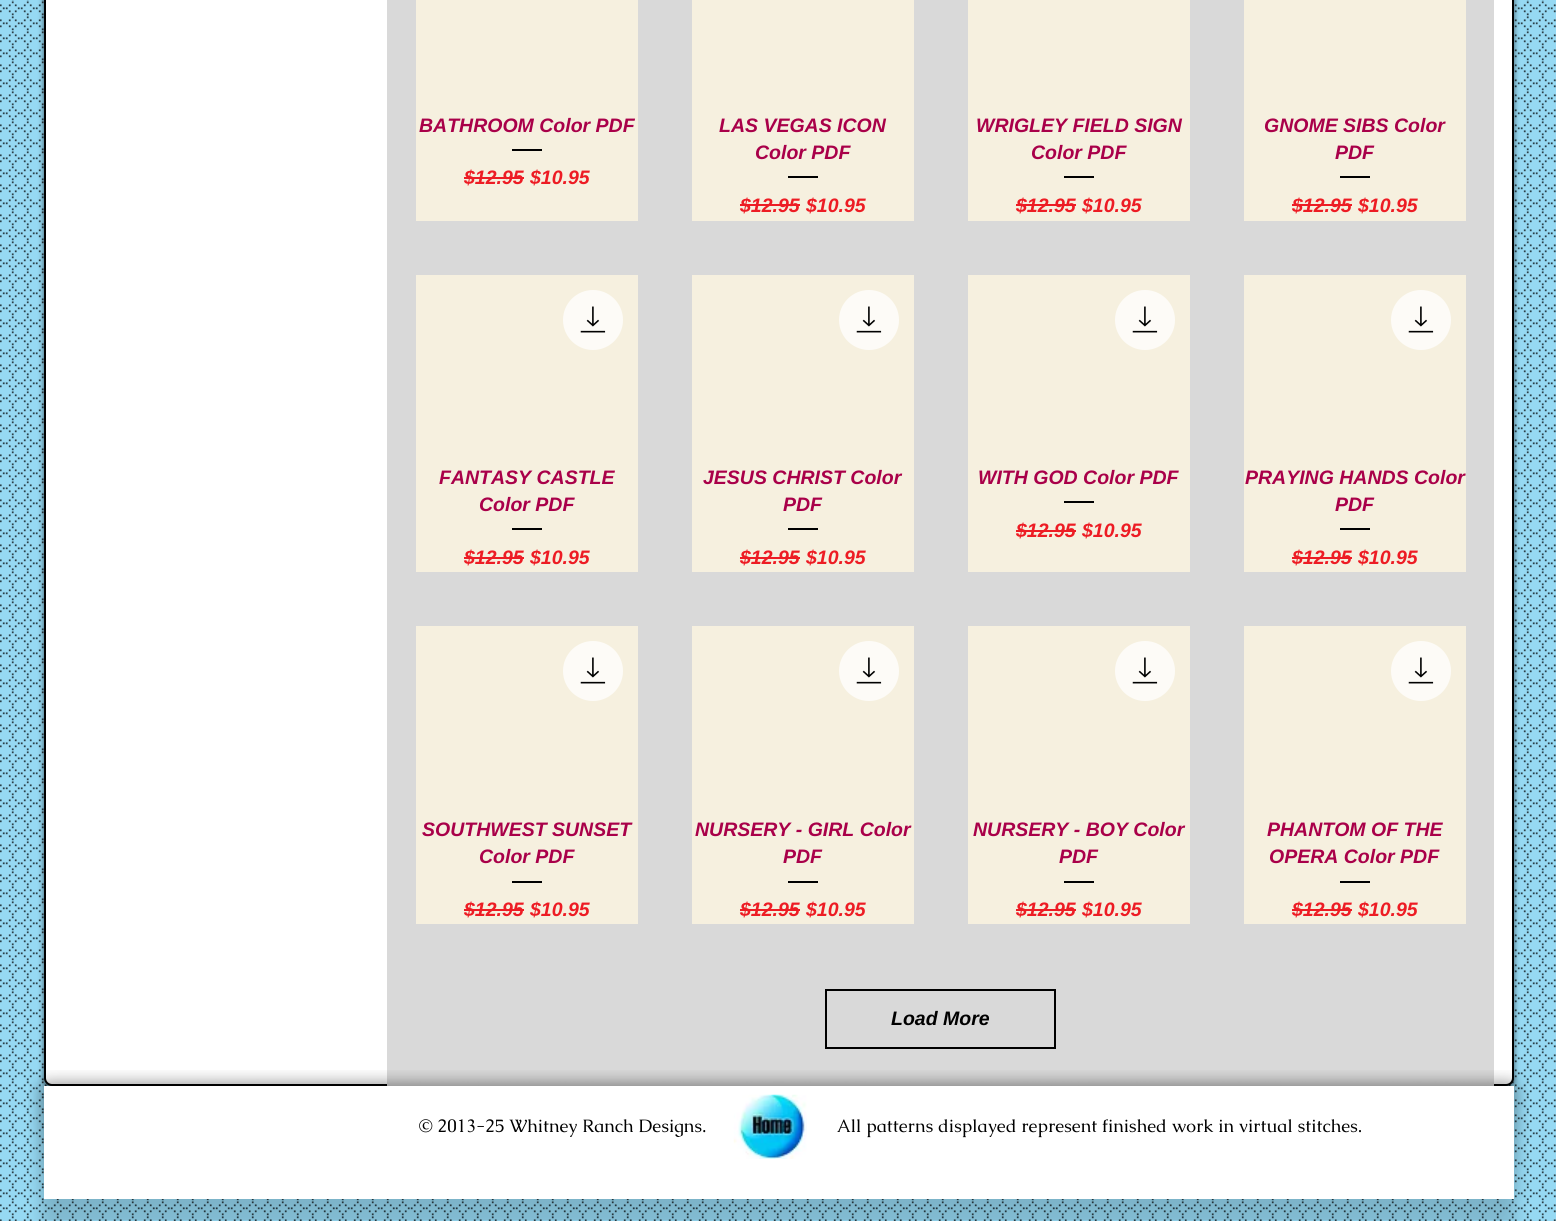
#include <cairo.h>
#include <math.h>
#include <stddef.h>

static cairo_t *ctx;

static void use_color(int r, int g, int b) {
    cairo_set_source_rgb(ctx, r / 255.0, g / 255.0, b / 255.0);
}

static void round_rect(double x, double y, double w, double h, double r) {
    cairo_new_sub_path(ctx);
    cairo_arc(ctx, x + w - r, y + h - r, r, 0, M_PI / 2);
    cairo_arc(ctx, x + r, y + h - r, r, M_PI / 2, M_PI);
    cairo_arc(ctx, x + r, y + r, r, M_PI, 1.5 * M_PI);
    cairo_arc(ctx, x + w - r, y + r, r, 1.5 * M_PI, 2 * M_PI);
    cairo_close_path(ctx);
}

static void shadow(double x, double y, double w, double h, double r, double blur, double alpha) {
    cairo_push_group_with_content(ctx, CAIRO_CONTENT_ALPHA);
    cairo_set_operator(ctx, CAIRO_OPERATOR_SOURCE);
    for (int i = 15; i >= -15 && fmin(w, h) + blur * i / 3 > 0; i -= 2) {
        double e = blur * i / 6;
        cairo_set_source_rgba(ctx, 0, 0, 0, alpha * erfc((i - 1) / 8.5) / 2);
        round_rect(x - e, y - e, w + 2 * e, h + 2 * e, fmax(0, fmin(r + e + blur * .6, fmin(w, h) / 2 + e)));
        cairo_fill(ctx);
    }
    cairo_pattern_t *soft = cairo_pop_group(ctx);
    cairo_mask(ctx, soft);
    cairo_pattern_destroy(soft);
}

static void picture(const char *path, double x, double y, double w, double h) {
    cairo_surface_t *image = cairo_image_surface_create_from_png(path);
    cairo_save(ctx);
    cairo_set_source_surface(ctx, image, x, y);
    cairo_rectangle(ctx, x, y, w, h);
    cairo_fill(ctx);
    cairo_restore(ctx);
    cairo_surface_destroy(image);
}

int main(void) {
    cairo_surface_t *surface = cairo_image_surface_create(CAIRO_FORMAT_RGB24, 1556, 1221);
    ctx = cairo_create(surface);
    cairo_font_options_t *options = cairo_font_options_create();
    cairo_font_options_set_hint_metrics(options, CAIRO_HINT_METRICS_OFF);
    cairo_font_options_set_hint_style(options, CAIRO_HINT_STYLE_NONE);
    cairo_set_font_options(ctx, options);
    cairo_set_miter_limit(ctx, 4);
    use_color(150, 217, 243);
    cairo_paint(ctx);
    picture("img1.png", 0, 0, 1556, 1221);
    use_color(0, 0, 0);
    shadow(44, -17, 1470, 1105, 8, 3, 0.6);
    use_color(255, 255, 255);
    round_rect(45, -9, 1468, 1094, 7);
    cairo_fill_preserve(ctx);
    use_color(0, 0, 0);
    cairo_stroke(ctx);
    use_color(217, 217, 217);
    cairo_rectangle(ctx, 387, 0, 1107, 1086);
    cairo_fill(ctx);
    use_color(246, 240, 223);
    cairo_rectangle(ctx, 416, 0, 222, 221);
    cairo_fill(ctx);
    cairo_select_font_face(ctx, "Liberation Sans", CAIRO_FONT_SLANT_ITALIC, CAIRO_FONT_WEIGHT_BOLD);
    cairo_set_font_size(ctx, 19.5);
    use_color(169, 0, 73);
    cairo_move_to(ctx, 419, 132);
    cairo_show_text(ctx, "BATHROOM Color PDF");
    use_color(0, 0, 0);
    cairo_rectangle(ctx, 512, 149, 30, 2);
    cairo_fill(ctx);
    use_color(237, 28, 36);
    cairo_move_to(ctx, 464, 184);
    cairo_show_text(ctx, "$12.95");
    cairo_rectangle(ctx, 464, 177, 60, 2);
    cairo_fill(ctx);
    cairo_move_to(ctx, 530, 184);
    cairo_show_text(ctx, "$10.95");
    use_color(246, 240, 223);
    cairo_rectangle(ctx, 692, 0, 222, 221);
    cairo_fill(ctx);
    use_color(169, 0, 73);
    cairo_move_to(ctx, 719, 132);
    cairo_show_text(ctx, "LAS VEGAS ICON");
    cairo_move_to(ctx, 755, 159);
    cairo_show_text(ctx, "Color PDF");
    use_color(0, 0, 0);
    cairo_rectangle(ctx, 788, 176, 30, 2);
    cairo_fill(ctx);
    use_color(237, 28, 36);
    cairo_move_to(ctx, 740, 212);
    cairo_show_text(ctx, "$12.95");
    cairo_rectangle(ctx, 740, 204, 60, 2);
    cairo_fill(ctx);
    cairo_move_to(ctx, 806, 212);
    cairo_show_text(ctx, "$10.95");
    use_color(246, 240, 223);
    cairo_rectangle(ctx, 968, 0, 222, 221);
    cairo_fill(ctx);
    use_color(169, 0, 73);
    cairo_move_to(ctx, 976, 132);
    cairo_show_text(ctx, "WRIGLEY FIELD SIGN");
    cairo_move_to(ctx, 1031, 159);
    cairo_show_text(ctx, "Color PDF");
    use_color(0, 0, 0);
    cairo_rectangle(ctx, 1064, 176, 30, 2);
    cairo_fill(ctx);
    use_color(237, 28, 36);
    cairo_move_to(ctx, 1016, 212);
    cairo_show_text(ctx, "$12.95");
    cairo_rectangle(ctx, 1016, 204, 60, 2);
    cairo_fill(ctx);
    cairo_move_to(ctx, 1082, 212);
    cairo_show_text(ctx, "$10.95");
    use_color(246, 240, 223);
    cairo_rectangle(ctx, 1244, 0, 222, 221);
    cairo_fill(ctx);
    use_color(169, 0, 73);
    cairo_move_to(ctx, 1264, 132);
    cairo_show_text(ctx, "GNOME SIBS Color");
    cairo_move_to(ctx, 1335, 159);
    cairo_show_text(ctx, "PDF");
    use_color(0, 0, 0);
    cairo_rectangle(ctx, 1340, 176, 30, 2);
    cairo_fill(ctx);
    use_color(237, 28, 36);
    cairo_move_to(ctx, 1292, 212);
    cairo_show_text(ctx, "$12.95");
    cairo_rectangle(ctx, 1292, 204, 60, 2);
    cairo_fill(ctx);
    cairo_move_to(ctx, 1358, 212);
    cairo_show_text(ctx, "$10.95");
    use_color(246, 240, 223);
    cairo_rectangle(ctx, 416, 275, 222, 297);
    cairo_fill(ctx);
    use_color(253, 251, 247);
    cairo_arc(ctx, 593, 320, 30, 0, 2 * M_PI);
    cairo_fill(ctx);
    picture("img2.png", 580, 306, 26, 27);
    use_color(169, 0, 73);
    cairo_move_to(ctx, 439, 484);
    cairo_show_text(ctx, "FANTASY CASTLE");
    cairo_move_to(ctx, 479, 511);
    cairo_show_text(ctx, "Color PDF");
    use_color(0, 0, 0);
    cairo_rectangle(ctx, 512, 528, 30, 2);
    cairo_fill(ctx);
    use_color(237, 28, 36);
    cairo_move_to(ctx, 464, 564);
    cairo_show_text(ctx, "$12.95");
    cairo_rectangle(ctx, 464, 557, 60, 2);
    cairo_fill(ctx);
    cairo_move_to(ctx, 530, 564);
    cairo_show_text(ctx, "$10.95");
    use_color(246, 240, 223);
    cairo_rectangle(ctx, 692, 275, 222, 297);
    cairo_fill(ctx);
    use_color(253, 251, 247);
    cairo_arc(ctx, 869, 320, 30, 0, 2 * M_PI);
    cairo_fill(ctx);
    picture("img2.png", 856, 306, 26, 27);
    use_color(169, 0, 73);
    cairo_move_to(ctx, 703, 484);
    cairo_show_text(ctx, "JESUS CHRIST Color");
    cairo_move_to(ctx, 783, 511);
    cairo_show_text(ctx, "PDF");
    use_color(0, 0, 0);
    cairo_rectangle(ctx, 788, 528, 30, 2);
    cairo_fill(ctx);
    use_color(237, 28, 36);
    cairo_move_to(ctx, 740, 564);
    cairo_show_text(ctx, "$12.95");
    cairo_rectangle(ctx, 740, 557, 60, 2);
    cairo_fill(ctx);
    cairo_move_to(ctx, 806, 564);
    cairo_show_text(ctx, "$10.95");
    use_color(246, 240, 223);
    cairo_rectangle(ctx, 968, 275, 222, 297);
    cairo_fill(ctx);
    use_color(253, 251, 247);
    cairo_arc(ctx, 1145, 320, 30, 0, 2 * M_PI);
    cairo_fill(ctx);
    picture("img2.png", 1132, 306, 26, 27);
    use_color(169, 0, 73);
    cairo_move_to(ctx, 978, 484);
    cairo_show_text(ctx, "WITH GOD Color PDF");
    use_color(0, 0, 0);
    cairo_rectangle(ctx, 1064, 501, 30, 2);
    cairo_fill(ctx);
    use_color(237, 28, 36);
    cairo_move_to(ctx, 1016, 537);
    cairo_show_text(ctx, "$12.95");
    cairo_rectangle(ctx, 1016, 530, 60, 2);
    cairo_fill(ctx);
    cairo_move_to(ctx, 1082, 537);
    cairo_show_text(ctx, "$10.95");
    use_color(246, 240, 223);
    cairo_rectangle(ctx, 1244, 275, 222, 297);
    cairo_fill(ctx);
    use_color(253, 251, 247);
    cairo_arc(ctx, 1421, 320, 30, 0, 2 * M_PI);
    cairo_fill(ctx);
    picture("img2.png", 1408, 306, 26, 27);
    use_color(169, 0, 73);
    cairo_move_to(ctx, 1245, 484);
    cairo_show_text(ctx, "PRAYING HANDS Color");
    cairo_move_to(ctx, 1335, 511);
    cairo_show_text(ctx, "PDF");
    use_color(0, 0, 0);
    cairo_rectangle(ctx, 1340, 528, 30, 2);
    cairo_fill(ctx);
    use_color(237, 28, 36);
    cairo_move_to(ctx, 1292, 564);
    cairo_show_text(ctx, "$12.95");
    cairo_rectangle(ctx, 1292, 557, 60, 2);
    cairo_fill(ctx);
    cairo_move_to(ctx, 1358, 564);
    cairo_show_text(ctx, "$10.95");
    use_color(246, 240, 223);
    cairo_rectangle(ctx, 416, 626, 222, 298);
    cairo_fill(ctx);
    use_color(253, 251, 247);
    cairo_arc(ctx, 593, 671, 30, 0, 2 * M_PI);
    cairo_fill(ctx);
    picture("img2.png", 580, 657, 26, 27);
    use_color(169, 0, 73);
    cairo_move_to(ctx, 422, 836);
    cairo_show_text(ctx, "SOUTHWEST SUNSET");
    cairo_move_to(ctx, 479, 863);
    cairo_show_text(ctx, "Color PDF");
    use_color(0, 0, 0);
    cairo_rectangle(ctx, 512, 881, 30, 2);
    cairo_fill(ctx);
    use_color(237, 28, 36);
    cairo_move_to(ctx, 464, 916);
    cairo_show_text(ctx, "$12.95");
    cairo_rectangle(ctx, 464, 909, 60, 2);
    cairo_fill(ctx);
    cairo_move_to(ctx, 530, 916);
    cairo_show_text(ctx, "$10.95");
    use_color(246, 240, 223);
    cairo_rectangle(ctx, 692, 626, 222, 298);
    cairo_fill(ctx);
    use_color(253, 251, 247);
    cairo_arc(ctx, 869, 671, 30, 0, 2 * M_PI);
    cairo_fill(ctx);
    picture("img2.png", 856, 657, 26, 27);
    use_color(169, 0, 73);
    cairo_move_to(ctx, 695, 836);
    cairo_show_text(ctx, "NURSERY - GIRL Color");
    cairo_move_to(ctx, 783, 863);
    cairo_show_text(ctx, "PDF");
    use_color(0, 0, 0);
    cairo_rectangle(ctx, 788, 881, 30, 2);
    cairo_fill(ctx);
    use_color(237, 28, 36);
    cairo_move_to(ctx, 740, 916);
    cairo_show_text(ctx, "$12.95");
    cairo_rectangle(ctx, 740, 909, 60, 2);
    cairo_fill(ctx);
    cairo_move_to(ctx, 806, 916);
    cairo_show_text(ctx, "$10.95");
    use_color(246, 240, 223);
    cairo_rectangle(ctx, 968, 626, 222, 298);
    cairo_fill(ctx);
    use_color(253, 251, 247);
    cairo_arc(ctx, 1145, 671, 30, 0, 2 * M_PI);
    cairo_fill(ctx);
    picture("img2.png", 1132, 657, 26, 27);
    use_color(169, 0, 73);
    cairo_move_to(ctx, 973, 836);
    cairo_show_text(ctx, "NURSERY - BOY Color");
    cairo_move_to(ctx, 1059, 863);
    cairo_show_text(ctx, "PDF");
    use_color(0, 0, 0);
    cairo_rectangle(ctx, 1064, 881, 30, 2);
    cairo_fill(ctx);
    use_color(237, 28, 36);
    cairo_move_to(ctx, 1016, 916);
    cairo_show_text(ctx, "$12.95");
    cairo_rectangle(ctx, 1016, 909, 60, 2);
    cairo_fill(ctx);
    cairo_move_to(ctx, 1082, 916);
    cairo_show_text(ctx, "$10.95");
    use_color(246, 240, 223);
    cairo_rectangle(ctx, 1244, 626, 222, 298);
    cairo_fill(ctx);
    use_color(253, 251, 247);
    cairo_arc(ctx, 1421, 671, 30, 0, 2 * M_PI);
    cairo_fill(ctx);
    picture("img2.png", 1408, 657, 26, 27);
    use_color(169, 0, 73);
    cairo_move_to(ctx, 1267, 836);
    cairo_show_text(ctx, "PHANTOM OF THE");
    cairo_move_to(ctx, 1269, 863);
    cairo_show_text(ctx, "OPERA Color PDF");
    use_color(0, 0, 0);
    cairo_rectangle(ctx, 1340, 881, 30, 2);
    cairo_fill(ctx);
    use_color(237, 28, 36);
    cairo_move_to(ctx, 1292, 916);
    cairo_show_text(ctx, "$12.95");
    cairo_rectangle(ctx, 1292, 909, 60, 2);
    cairo_fill(ctx);
    cairo_move_to(ctx, 1358, 916);
    cairo_show_text(ctx, "$10.95");
    cairo_rectangle(ctx, 826, 990, 229, 58);
    use_color(0, 0, 0);
    cairo_stroke(ctx);
    cairo_move_to(ctx, 891, 1025);
    cairo_show_text(ctx, "Load More");
    picture("img3.png", 28, 1070, 68, 151);
    picture("img4.png", 96, 1070, 1365, 151);
    picture("img5.png", 1461, 1070, 68, 151);
    use_color(255, 255, 255);
    cairo_rectangle(ctx, 44, 1086, 1470, 113);
    cairo_fill(ctx);
    cairo_select_font_face(ctx, "Caudex", CAIRO_FONT_SLANT_NORMAL, CAIRO_FONT_WEIGHT_NORMAL);
    cairo_set_font_size(ctx, 18);
    use_color(0, 0, 0);
    cairo_move_to(ctx, 419, 1132);
    cairo_show_text(ctx, "© 2013-25 Whitney Ranch Designs.                           All patterns displayed represent finished work in virtual stitches.");
    picture("img6.png", 733, 1094, 74, 65);
    cairo_surface_write_to_png(surface, "result.png");
    cairo_font_options_destroy(options);
    cairo_destroy(ctx);
    cairo_surface_destroy(surface);
    return 0;
}
